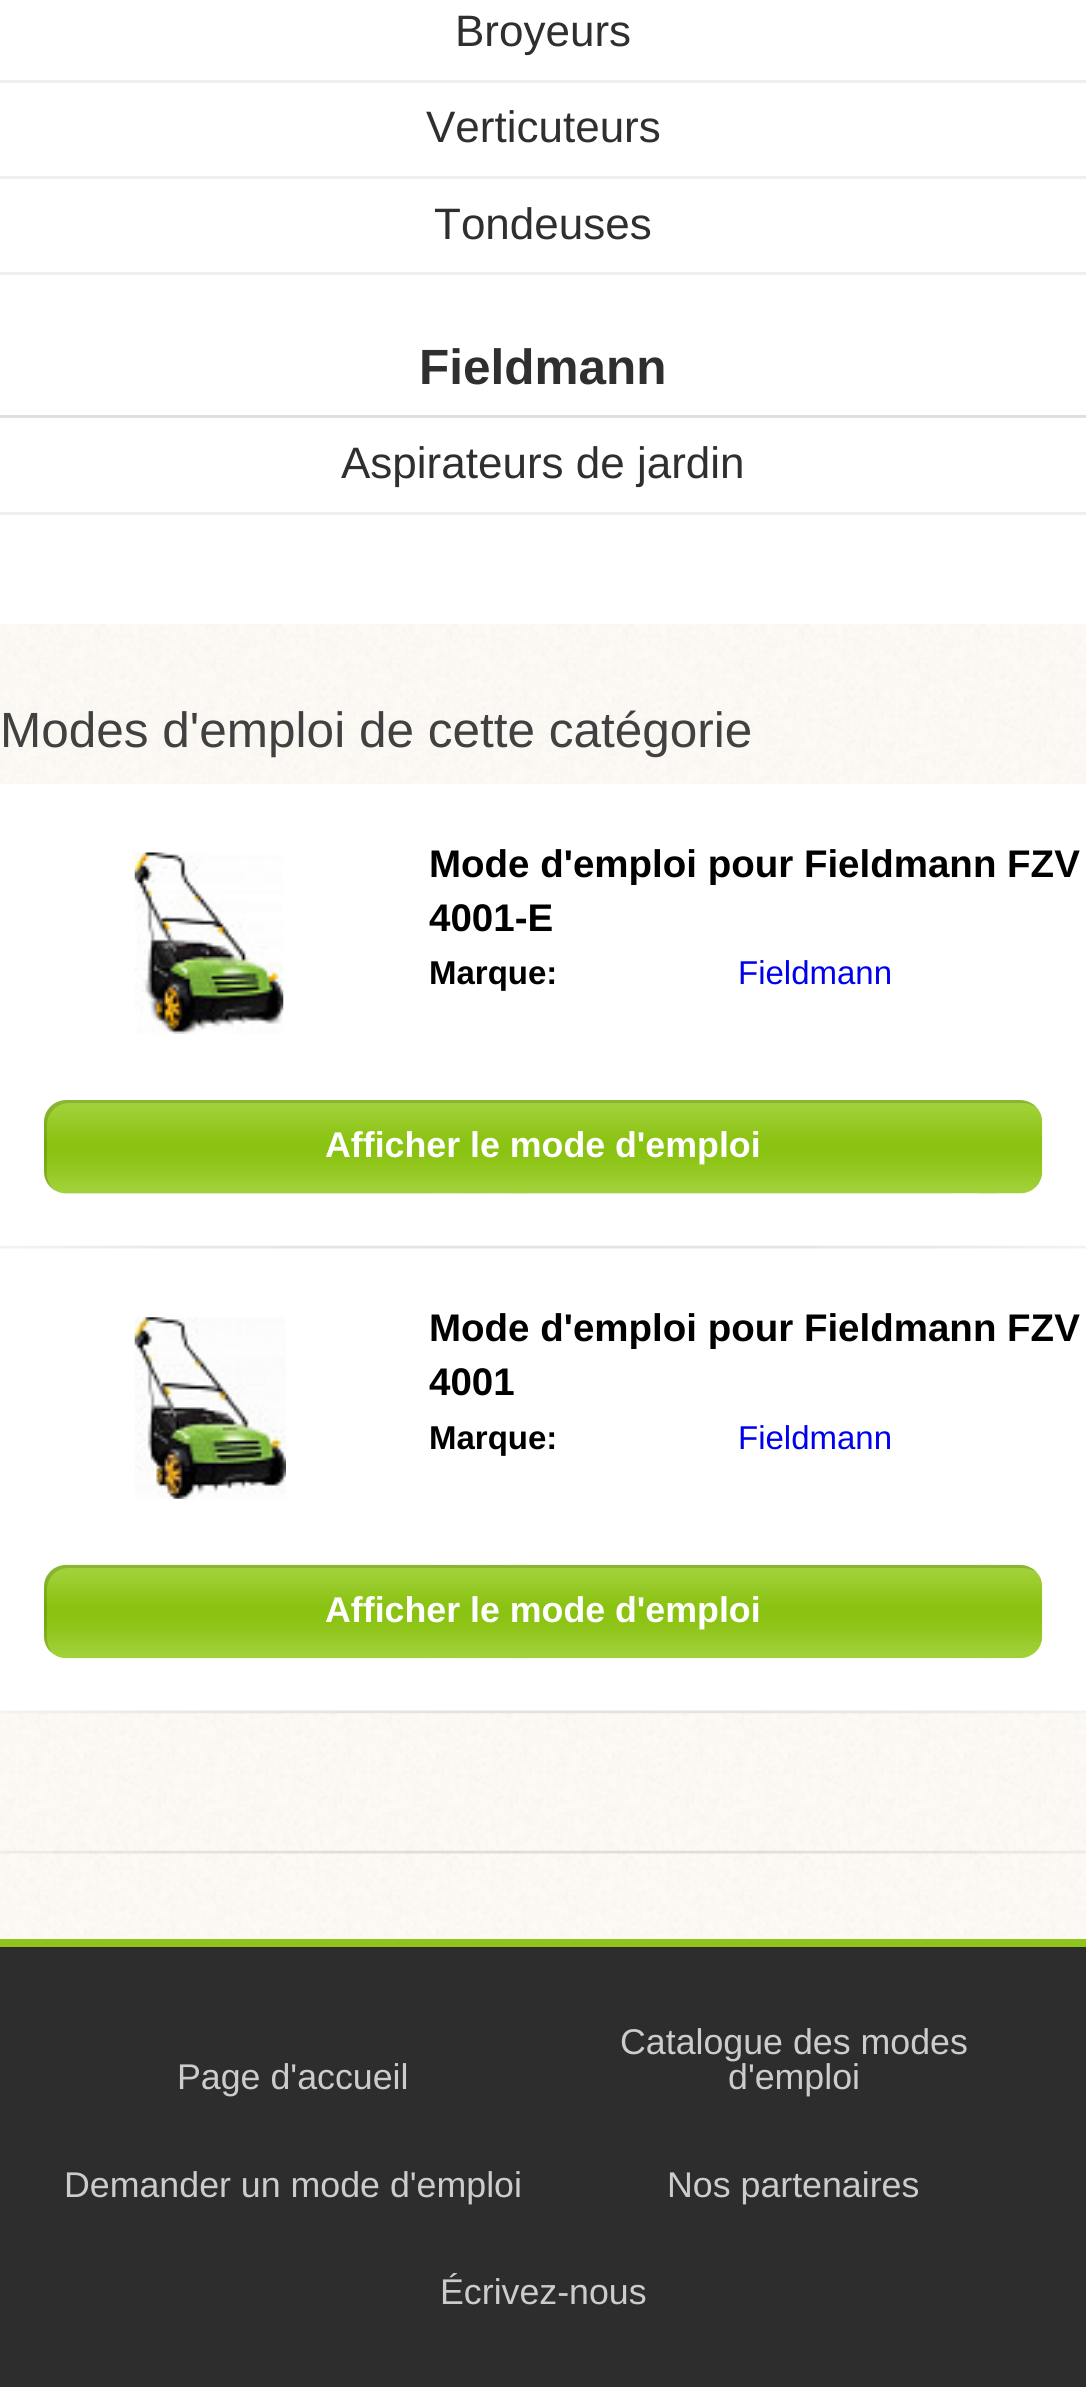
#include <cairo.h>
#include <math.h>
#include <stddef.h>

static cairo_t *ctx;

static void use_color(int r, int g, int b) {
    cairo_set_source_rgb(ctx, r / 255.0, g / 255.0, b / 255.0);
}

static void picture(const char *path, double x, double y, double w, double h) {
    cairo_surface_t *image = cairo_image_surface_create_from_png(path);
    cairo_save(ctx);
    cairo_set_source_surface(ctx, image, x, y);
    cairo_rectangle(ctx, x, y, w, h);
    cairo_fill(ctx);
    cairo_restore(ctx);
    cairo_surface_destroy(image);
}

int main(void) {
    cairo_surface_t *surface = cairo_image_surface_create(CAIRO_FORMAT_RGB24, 1086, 2387);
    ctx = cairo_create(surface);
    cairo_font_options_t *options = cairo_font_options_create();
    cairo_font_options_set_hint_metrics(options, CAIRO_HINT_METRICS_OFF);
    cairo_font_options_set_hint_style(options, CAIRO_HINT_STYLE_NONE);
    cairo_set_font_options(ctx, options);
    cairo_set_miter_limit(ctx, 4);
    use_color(255, 255, 255);
    cairo_paint(ctx);
    picture("img1.png", 0, 624, 1086, 1315);
    use_color(239, 239, 239);
    cairo_rectangle(ctx, 0, 80, 1086, 3);
    cairo_fill(ctx);
    cairo_select_font_face(ctx, "Liberation Sans", CAIRO_FONT_SLANT_NORMAL, CAIRO_FONT_WEIGHT_NORMAL);
    cairo_set_font_size(ctx, 44);
    use_color(47, 47, 47);
    cairo_move_to(ctx, 455, 46);
    cairo_show_text(ctx, "Broyeurs");
    use_color(239, 239, 239);
    cairo_rectangle(ctx, 0, 176, 1086, 3);
    cairo_fill(ctx);
    use_color(47, 47, 47);
    cairo_move_to(ctx, 426, 142);
    cairo_show_text(ctx, "Verticuteurs");
    use_color(239, 239, 239);
    cairo_rectangle(ctx, 0, 272, 1086, 3);
    cairo_fill(ctx);
    use_color(47, 47, 47);
    cairo_move_to(ctx, 434, 239);
    cairo_show_text(ctx, "Tondeuses");
    use_color(223, 223, 223);
    cairo_rectangle(ctx, 0, 415, 1086, 3);
    cairo_fill(ctx);
    cairo_select_font_face(ctx, "Liberation Sans", CAIRO_FONT_SLANT_NORMAL, CAIRO_FONT_WEIGHT_BOLD);
    cairo_set_font_size(ctx, 49.5);
    use_color(47, 47, 47);
    cairo_move_to(ctx, 419, 384);
    cairo_show_text(ctx, "Fieldmann");
    use_color(239, 239, 239);
    cairo_rectangle(ctx, 0, 512, 1086, 3);
    cairo_fill(ctx);
    cairo_select_font_face(ctx, "Liberation Sans", CAIRO_FONT_SLANT_NORMAL, CAIRO_FONT_WEIGHT_NORMAL);
    cairo_set_font_size(ctx, 44);
    use_color(47, 47, 47);
    cairo_move_to(ctx, 341, 478);
    cairo_show_text(ctx, "Aspirateurs de jardin");
    cairo_set_font_size(ctx, 49.5);
    use_color(65, 65, 65);
    cairo_move_to(ctx, 0, 747);
    cairo_show_text(ctx, "Modes d'emploi de cette catégorie");
    use_color(255, 255, 255);
    cairo_rectangle(ctx, 0, 784, 1086, 929);
    cairo_fill(ctx);
    picture("img2.png", 0, 1245, 1086, 4);
    picture("img3.png", 134, 852, 150, 182);
    cairo_select_font_face(ctx, "Liberation Sans", CAIRO_FONT_SLANT_NORMAL, CAIRO_FONT_WEIGHT_BOLD);
    cairo_set_font_size(ctx, 38.5);
    use_color(0, 0, 0);
    cairo_move_to(ctx, 429, 877);
    cairo_show_text(ctx, "Mode d'emploi pour Fieldmann FZV");
    cairo_move_to(ctx, 429, 931);
    cairo_show_text(ctx, "4001-E");
    cairo_set_font_size(ctx, 33);
    cairo_move_to(ctx, 429, 984);
    cairo_show_text(ctx, "Marque:");
    cairo_select_font_face(ctx, "Liberation Sans", CAIRO_FONT_SLANT_NORMAL, CAIRO_FONT_WEIGHT_NORMAL);
    use_color(0, 0, 238);
    cairo_move_to(ctx, 738, 984);
    cairo_show_text(ctx, "Fieldmann");
    picture("img4.png", 44, 1100, 999, 94);
    cairo_set_source_rgba(ctx, 0, 0, 0, 0.14);
    cairo_new_path(ctx);
    cairo_move_to(ctx, 69, 1103);
    cairo_line_to(ctx, 1023, 1103);
    cairo_curve_to(ctx, 1028, 1103, 1033, 1105, 1037, 1108);
    cairo_curve_to(ctx, 1033, 1103, 1027, 1100, 1020, 1100);
    cairo_line_to(ctx, 66, 1100);
    cairo_curve_to(ctx, 54, 1100, 44, 1110, 44, 1122);
    cairo_line_to(ctx, 44, 1172);
    cairo_curve_to(ctx, 44, 1180, 49, 1188, 56, 1191);
    cairo_curve_to(ctx, 50, 1187, 47, 1181, 47, 1174);
    cairo_line_to(ctx, 47, 1125);
    cairo_curve_to(ctx, 47, 1113, 57, 1103, 69, 1103);
    cairo_close_path(ctx);
    cairo_fill(ctx);
    cairo_select_font_face(ctx, "Liberation Sans", CAIRO_FONT_SLANT_NORMAL, CAIRO_FONT_WEIGHT_BOLD);
    cairo_set_font_size(ctx, 35.75);
    use_color(255, 255, 255);
    cairo_move_to(ctx, 325, 1157);
    cairo_show_text(ctx, "Afficher le mode d'emploi");
    picture("img5.png", 0, 1710, 1086, 4);
    picture("img6.png", 134, 1317, 152, 182);
    cairo_set_font_size(ctx, 38.5);
    use_color(0, 0, 0);
    cairo_move_to(ctx, 429, 1341);
    cairo_show_text(ctx, "Mode d'emploi pour Fieldmann FZV");
    cairo_move_to(ctx, 429, 1395);
    cairo_show_text(ctx, "4001");
    cairo_set_font_size(ctx, 33);
    cairo_move_to(ctx, 429, 1449);
    cairo_show_text(ctx, "Marque:");
    cairo_select_font_face(ctx, "Liberation Sans", CAIRO_FONT_SLANT_NORMAL, CAIRO_FONT_WEIGHT_NORMAL);
    use_color(0, 0, 238);
    cairo_move_to(ctx, 738, 1449);
    cairo_show_text(ctx, "Fieldmann");
    picture("img7.png", 44, 1564, 999, 95);
    cairo_set_source_rgba(ctx, 0, 0, 0, 0.14);
    cairo_new_path(ctx);
    cairo_move_to(ctx, 69, 1568);
    cairo_line_to(ctx, 1023, 1568);
    cairo_curve_to(ctx, 1028, 1568, 1033, 1570, 1036, 1572);
    cairo_curve_to(ctx, 1032, 1568, 1027, 1565, 1020, 1565);
    cairo_line_to(ctx, 66, 1565);
    cairo_curve_to(ctx, 54, 1565, 44, 1575, 44, 1587);
    cairo_line_to(ctx, 44, 1636);
    cairo_curve_to(ctx, 44, 1643, 47, 1649, 52, 1653);
    cairo_curve_to(ctx, 49, 1649, 47, 1644, 47, 1639);
    cairo_line_to(ctx, 47, 1590);
    cairo_curve_to(ctx, 47, 1577, 57, 1568, 69, 1568);
    cairo_close_path(ctx);
    cairo_fill(ctx);
    cairo_select_font_face(ctx, "Liberation Sans", CAIRO_FONT_SLANT_NORMAL, CAIRO_FONT_WEIGHT_BOLD);
    cairo_set_font_size(ctx, 35.75);
    use_color(255, 255, 255);
    cairo_move_to(ctx, 325, 1622);
    cairo_show_text(ctx, "Afficher le mode d'emploi");
    picture("img8.png", 0, 1850, 1086, 4);
    use_color(45, 45, 45);
    cairo_rectangle(ctx, 0, 1947, 1086, 440);
    cairo_fill(ctx);
    use_color(144, 198, 27);
    cairo_rectangle(ctx, 0, 1939, 1086, 8);
    cairo_fill(ctx);
    cairo_select_font_face(ctx, "Liberation Sans", CAIRO_FONT_SLANT_NORMAL, CAIRO_FONT_WEIGHT_NORMAL);
    use_color(204, 204, 204);
    cairo_move_to(ctx, 177, 2089);
    cairo_show_text(ctx, "Page d'accueil");
    cairo_move_to(ctx, 620, 2054);
    cairo_show_text(ctx, "Catalogue des modes");
    cairo_move_to(ctx, 728, 2089);
    cairo_show_text(ctx, "d'emploi");
    cairo_move_to(ctx, 64, 2197);
    cairo_show_text(ctx, "Demander un mode d'emploi");
    cairo_move_to(ctx, 667, 2197);
    cairo_show_text(ctx, "Nos partenaires");
    cairo_move_to(ctx, 440, 2304);
    cairo_show_text(ctx, "Écrivez-nous");
    cairo_surface_write_to_png(surface, "result.png");
    cairo_font_options_destroy(options);
    cairo_destroy(ctx);
    cairo_surface_destroy(surface);
    return 0;
}
